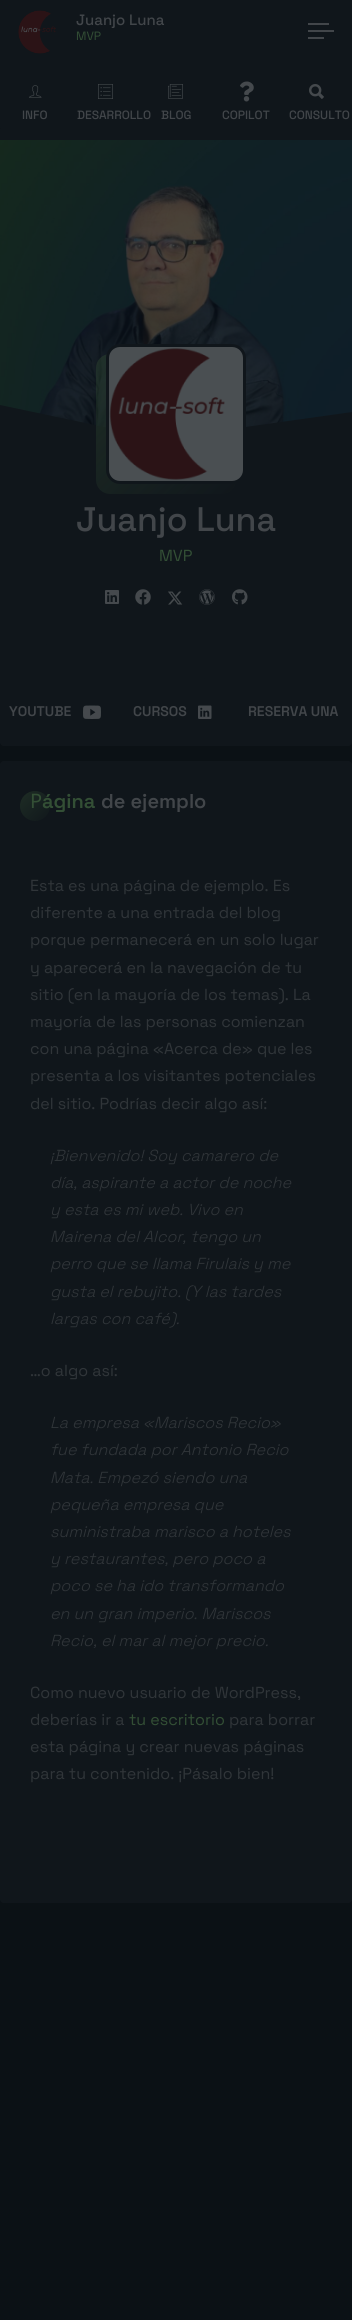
#include <cairo.h>
#include <math.h>
#include <stddef.h>

static cairo_t *ctx;

static void use_color(int r, int g, int b) {
    cairo_set_source_rgb(ctx, r / 255.0, g / 255.0, b / 255.0);
}

static void round_rect(double x, double y, double w, double h, double r) {
    cairo_new_sub_path(ctx);
    cairo_arc(ctx, x + w - r, y + h - r, r, 0, M_PI / 2);
    cairo_arc(ctx, x + r, y + h - r, r, M_PI / 2, M_PI);
    cairo_arc(ctx, x + r, y + r, r, M_PI, 1.5 * M_PI);
    cairo_arc(ctx, x + w - r, y + r, r, 1.5 * M_PI, 2 * M_PI);
    cairo_close_path(ctx);
}

static void picture(const char *path, double x, double y, double w, double h) {
    cairo_surface_t *image = cairo_image_surface_create_from_png(path);
    cairo_save(ctx);
    cairo_set_source_surface(ctx, image, x, y);
    cairo_rectangle(ctx, x, y, w, h);
    cairo_fill(ctx);
    cairo_restore(ctx);
    cairo_surface_destroy(image);
}

int main(void) {
    cairo_surface_t *surface = cairo_image_surface_create(CAIRO_FORMAT_RGB24, 352, 2320);
    ctx = cairo_create(surface);
    cairo_font_options_t *options = cairo_font_options_create();
    cairo_font_options_set_hint_metrics(options, CAIRO_HINT_METRICS_OFF);
    cairo_font_options_set_hint_style(options, CAIRO_HINT_STYLE_NONE);
    cairo_set_font_options(ctx, options);
    cairo_set_miter_limit(ctx, 4);
    cairo_pattern_t *gradient;
    use_color(11, 17, 21);
    cairo_paint(ctx);
    use_color(16, 22, 27);
    round_rect(0, 126, 352, 620, 4);
    cairo_fill(ctx);
    cairo_rectangle(ctx, 0, 0, 352, 128);
    cairo_fill(ctx);
    picture("img1.png", 18, 10, 38, 44);
    cairo_select_font_face(ctx, "Space Grotesk Medium", CAIRO_FONT_SLANT_NORMAL, CAIRO_FONT_WEIGHT_NORMAL);
    cairo_set_font_size(ctx, 15);
    use_color(66, 70, 74);
    cairo_move_to(ctx, 76, 25);
    cairo_show_text(ctx, "Juanjo Luna");
    cairo_select_font_face(ctx, "Space Grotesk", CAIRO_FONT_SLANT_NORMAL, CAIRO_FONT_WEIGHT_NORMAL);
    cairo_set_font_size(ctx, 12);
    use_color(51, 79, 53);
    cairo_move_to(ctx, 76, 40);
    cairo_show_text(ctx, "MVP");
    use_color(66, 70, 74);
    cairo_rectangle(ctx, 308, 30, 26, 2);
    cairo_fill(ctx);
    cairo_rectangle(ctx, 308, 23, 21, 2);
    cairo_fill(ctx);
    cairo_rectangle(ctx, 308, 37, 16, 2);
    cairo_fill(ctx);
    picture("img2.png", 29, 85, 13, 13);
    cairo_select_font_face(ctx, "Space Grotesk Medium", CAIRO_FONT_SLANT_NORMAL, CAIRO_FONT_WEIGHT_NORMAL);
    cairo_move_to(ctx, 22, 119);
    cairo_show_text(ctx, "INFO");
    picture("img3.png", 98, 84, 15, 15);
    cairo_move_to(ctx, 77, 119);
    cairo_show_text(ctx, "DESARROLLO");
    picture("img4.png", 168, 84, 15, 15);
    cairo_move_to(ctx, 161, 119);
    cairo_show_text(ctx, "BLOG");
    picture("img5.png", 240, 81, 14, 21);
    cairo_move_to(ctx, 222, 119);
    cairo_show_text(ctx, "COPILOT");
    picture("img6.png", 309, 84, 15, 15);
    cairo_move_to(ctx, 289, 119);
    cairo_show_text(ctx, "CONSULTO");
    picture("img7.png", 0, 140, 352, 288);
    use_color(16, 22, 27);
    cairo_new_path(ctx);
    cairo_move_to(ctx, 0, 635);
    cairo_line_to(ctx, 0, 405);
    cairo_line_to(ctx, 284, 465);
    cairo_line_to(ctx, 237, 686);
    cairo_close_path(ctx);
    cairo_fill(ctx);
    cairo_new_path(ctx);
    cairo_move_to(ctx, 74, 451);
    cairo_line_to(ctx, 352, 412);
    cairo_line_to(ctx, 352, 640);
    cairo_line_to(ctx, 105, 675);
    cairo_close_path(ctx);
    cairo_fill(ctx);
    gradient = cairo_pattern_create_linear(96, 354, 236, 494);
    cairo_pattern_add_color_stop_rgba(gradient, 0, 0.2, 0.31, 0.208, 0.4);
    cairo_pattern_add_color_stop_rgba(gradient, 1, 0.2, 0.31, 0.208, 0.01);
    cairo_set_source(ctx, gradient);
    cairo_pattern_destroy(gradient);
    round_rect(96, 354, 140, 140, 14);
    cairo_fill(ctx);
    use_color(74, 79, 82);
    round_rect(107.5, 345.5, 137, 137, 12.5);
    cairo_fill_preserve(ctx);
    use_color(16, 22, 27);
    cairo_set_line_width(ctx, 3);
    cairo_stroke(ctx);
    picture("img8.png", 109, 348, 116, 132);
    cairo_set_font_size(ctx, 34);
    use_color(66, 70, 74);
    cairo_move_to(ctx, 76, 531);
    cairo_show_text(ctx, "Juanjo Luna");
    cairo_select_font_face(ctx, "Space Grotesk", CAIRO_FONT_SLANT_NORMAL, CAIRO_FONT_WEIGHT_NORMAL);
    cairo_set_font_size(ctx, 16);
    use_color(51, 79, 53);
    cairo_move_to(ctx, 159, 561);
    cairo_show_text(ctx, "MVP");
    picture("img9.png", 105, 590, 14, 14);
    picture("img10.png", 135, 589, 16, 16);
    picture("img11.png", 168, 591, 15, 14);
    picture("img12.png", 199, 589, 16, 16);
    picture("img13.png", 232, 589, 16, 16);
    cairo_select_font_face(ctx, "Space Grotesk SemiBold", CAIRO_FONT_SLANT_NORMAL, CAIRO_FONT_WEIGHT_NORMAL);
    cairo_set_font_size(ctx, 14);
    use_color(66, 70, 74);
    cairo_move_to(ctx, 9, 716);
    cairo_show_text(ctx, "YOUTUBE");
    picture("img14.png", 83, 705, 18, 14);
    cairo_move_to(ctx, 133, 716);
    cairo_show_text(ctx, "CURSOS");
    picture("img15.png", 198, 705, 14, 14);
    cairo_move_to(ctx, 248, 716);
    cairo_show_text(ctx, "RESERVA UNA");
    use_color(16, 22, 27);
    round_rect(0, 761, 352, 1142, 4);
    cairo_fill(ctx);
    gradient = cairo_pattern_create_linear(20, 791, 50, 821);
    cairo_pattern_add_color_stop_rgba(gradient, 0, 0.118, 0.176, 0.145, 1);
    cairo_pattern_add_color_stop_rgba(gradient, 1, 0.063, 0.09, 0.106, 1);
    cairo_set_source(ctx, gradient);
    cairo_pattern_destroy(gradient);
    cairo_arc(ctx, 35, 806, 15, 0, 2 * M_PI);
    cairo_fill(ctx);
    cairo_select_font_face(ctx, "Noto Sans", CAIRO_FONT_SLANT_NORMAL, CAIRO_FONT_WEIGHT_NORMAL);
    cairo_set_font_size(ctx, 20);
    use_color(51, 79, 53);
    cairo_move_to(ctx, 30, 808);
    cairo_show_text(ctx, "P");
    cairo_select_font_face(ctx, "Space Grotesk SemiBold", CAIRO_FONT_SLANT_NORMAL, CAIRO_FONT_WEIGHT_NORMAL);
    cairo_move_to(ctx, 42, 808);
    cairo_show_text(ctx, "ágina");
    use_color(66, 70, 74);
    cairo_move_to(ctx, 101, 808);
    cairo_show_text(ctx, "de ejemplo");
    cairo_select_font_face(ctx, "Space Grotesk", CAIRO_FONT_SLANT_NORMAL, CAIRO_FONT_WEIGHT_NORMAL);
    cairo_set_font_size(ctx, 16);
    use_color(48, 53, 57);
    cairo_move_to(ctx, 30, 891);
    cairo_show_text(ctx, "Esta es una página de ejemplo. Es");
    cairo_move_to(ctx, 30, 918);
    cairo_show_text(ctx, "diferente a una entrada del blog");
    cairo_move_to(ctx, 30, 945);
    cairo_show_text(ctx, "porque permanecerá en un solo lugar");
    cairo_move_to(ctx, 30, 973);
    cairo_show_text(ctx, "y aparecerá en la navegación de tu");
    cairo_move_to(ctx, 30, 1000);
    cairo_show_text(ctx, "sitio (en la mayoría de los temas). La");
    cairo_move_to(ctx, 30, 1027);
    cairo_show_text(ctx, "mayoría de las personas comienzan");
    cairo_move_to(ctx, 30, 1054);
    cairo_show_text(ctx, "con una página «Acerca de» que les");
    cairo_move_to(ctx, 30, 1081);
    cairo_show_text(ctx, "presenta a los visitantes potenciales");
    cairo_move_to(ctx, 30, 1109);
    cairo_show_text(ctx, "del sitio. Podrías decir algo así:");
    cairo_select_font_face(ctx, "Space Grotesk Light", CAIRO_FONT_SLANT_ITALIC, CAIRO_FONT_WEIGHT_NORMAL);
    cairo_move_to(ctx, 50, 1161);
    cairo_show_text(ctx, "¡Bienvenido! Soy camarero de");
    cairo_move_to(ctx, 50, 1188);
    cairo_show_text(ctx, "día, aspirante a actor de noche");
    cairo_move_to(ctx, 50, 1215);
    cairo_show_text(ctx, "y esta es mi web. Vivo en");
    cairo_move_to(ctx, 50, 1242);
    cairo_show_text(ctx, "Mairena del Alcor, tengo un");
    cairo_move_to(ctx, 50, 1269);
    cairo_show_text(ctx, "perro que se llama Firulais y me");
    cairo_move_to(ctx, 50, 1297);
    cairo_show_text(ctx, "gusta el rebujito. (Y las tardes");
    cairo_move_to(ctx, 50, 1324);
    cairo_show_text(ctx, "largas con café).");
    cairo_select_font_face(ctx, "Space Grotesk", CAIRO_FONT_SLANT_NORMAL, CAIRO_FONT_WEIGHT_NORMAL);
    cairo_move_to(ctx, 30, 1376);
    cairo_show_text(ctx, "…o algo así:");
    cairo_select_font_face(ctx, "Space Grotesk Light", CAIRO_FONT_SLANT_ITALIC, CAIRO_FONT_WEIGHT_NORMAL);
    cairo_move_to(ctx, 50, 1428);
    cairo_show_text(ctx, "La empresa «Mariscos Recio»");
    cairo_move_to(ctx, 50, 1455);
    cairo_show_text(ctx, "fue fundada por Antonio Recio");
    cairo_move_to(ctx, 50, 1483);
    cairo_show_text(ctx, "Mata. Empezó siendo una");
    cairo_move_to(ctx, 50, 1510);
    cairo_show_text(ctx, "pequeña empresa que");
    cairo_move_to(ctx, 50, 1537);
    cairo_show_text(ctx, "suministraba marisco a hoteles");
    cairo_move_to(ctx, 50, 1564);
    cairo_show_text(ctx, "y restaurantes, pero poco a");
    cairo_move_to(ctx, 50, 1591);
    cairo_show_text(ctx, "poco se ha ido transformando");
    cairo_move_to(ctx, 50, 1619);
    cairo_show_text(ctx, "en un gran imperio. Mariscos");
    cairo_move_to(ctx, 50, 1646);
    cairo_show_text(ctx, "Recio, el mar al mejor precio.");
    cairo_select_font_face(ctx, "Space Grotesk", CAIRO_FONT_SLANT_NORMAL, CAIRO_FONT_WEIGHT_NORMAL);
    cairo_move_to(ctx, 30, 1698);
    cairo_show_text(ctx, "Como nuevo usuario de WordPress,");
    cairo_move_to(ctx, 30, 1725);
    cairo_show_text(ctx, "deberías ir a");
    use_color(51, 79, 53);
    cairo_move_to(ctx, 129, 1725);
    cairo_show_text(ctx, "tu escritorio");
    use_color(48, 53, 57);
    cairo_move_to(ctx, 229, 1725);
    cairo_show_text(ctx, "para borrar");
    cairo_move_to(ctx, 30, 1752);
    cairo_show_text(ctx, "esta página y crear nuevas páginas");
    cairo_move_to(ctx, 30, 1779);
    cairo_show_text(ctx, "para tu contenido. ¡Pásalo bien!");
    cairo_surface_write_to_png(surface, "result.png");
    cairo_font_options_destroy(options);
    cairo_destroy(ctx);
    cairo_surface_destroy(surface);
    return 0;
}
